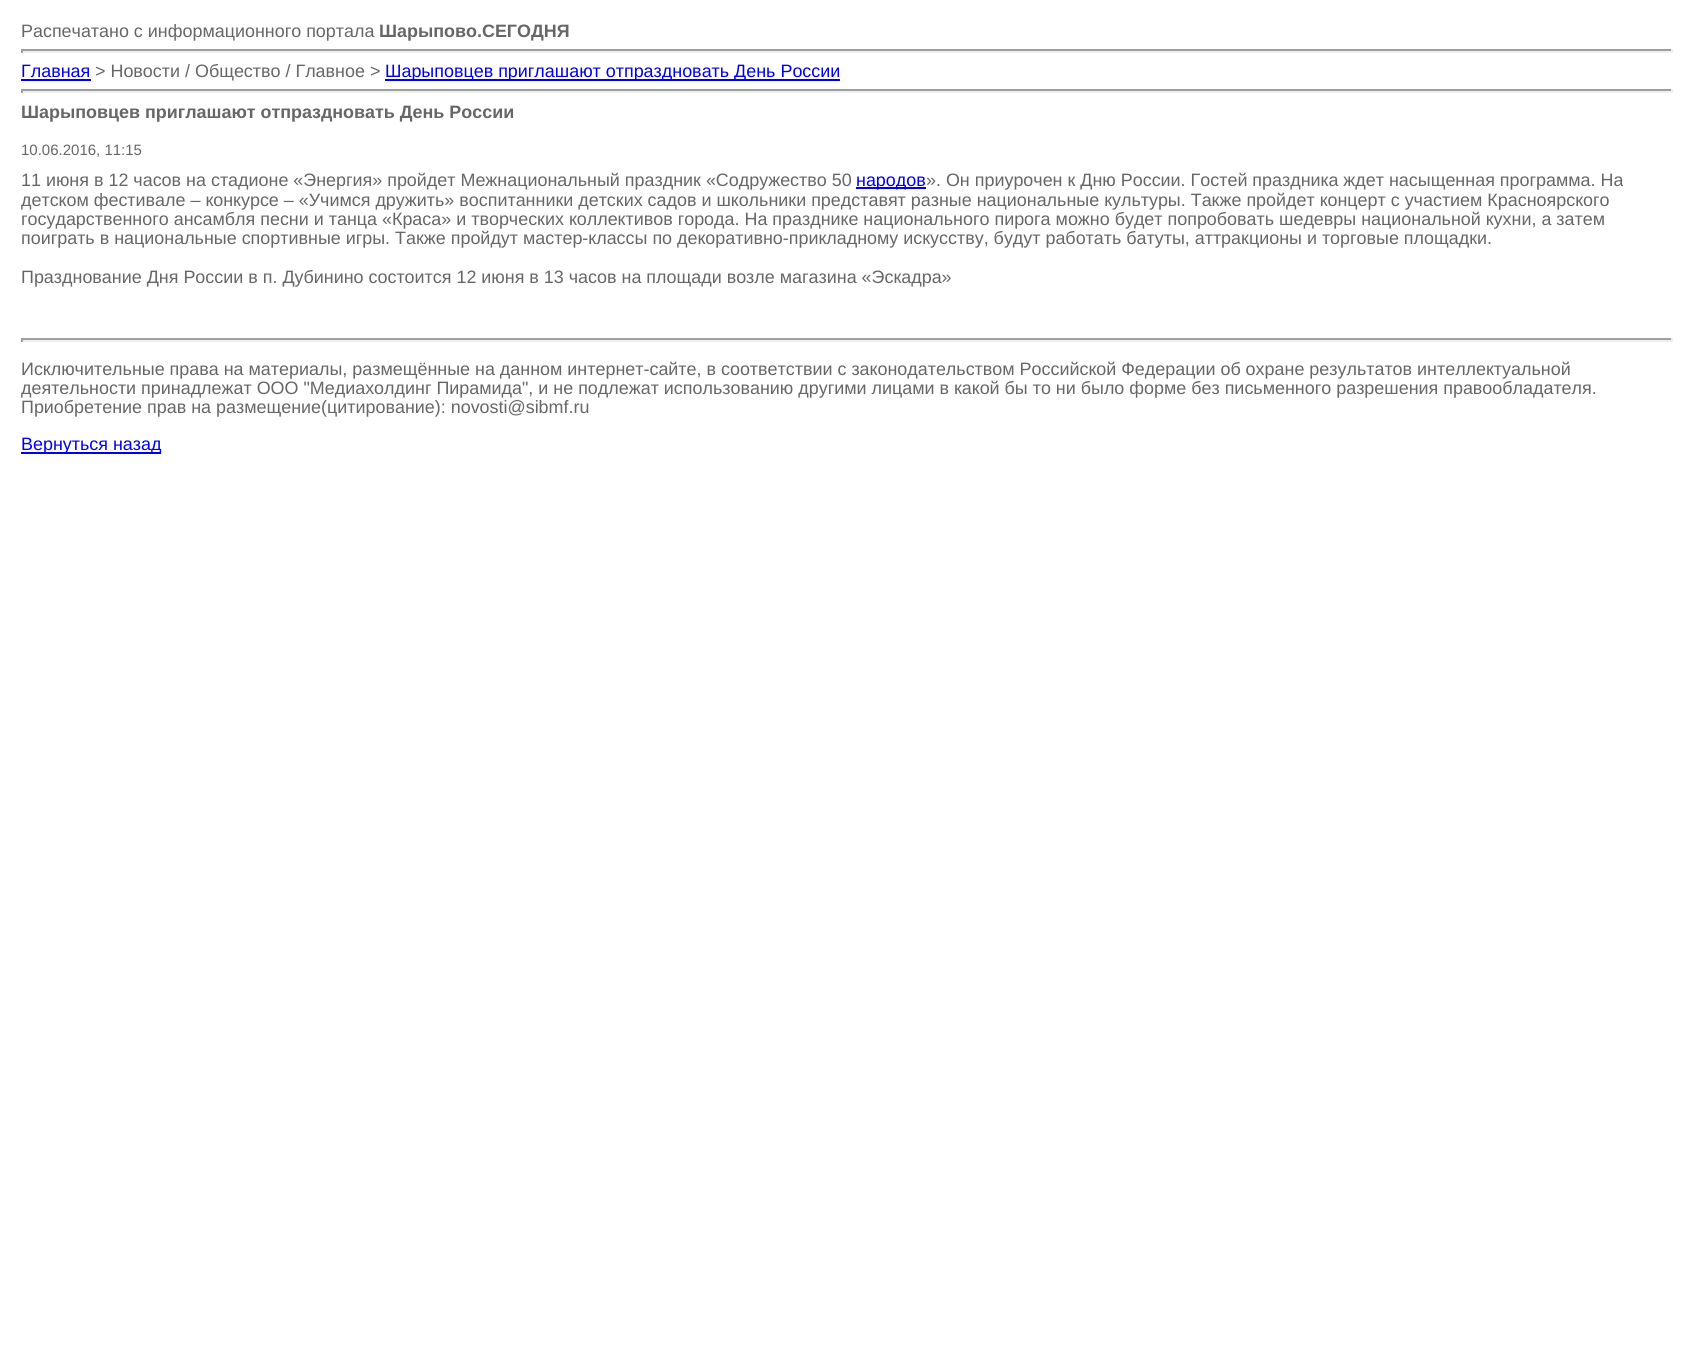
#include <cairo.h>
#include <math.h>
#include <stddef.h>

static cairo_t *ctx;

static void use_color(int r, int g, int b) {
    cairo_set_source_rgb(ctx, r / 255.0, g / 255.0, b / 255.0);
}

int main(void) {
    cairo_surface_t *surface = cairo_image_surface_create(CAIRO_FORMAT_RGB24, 1693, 1345);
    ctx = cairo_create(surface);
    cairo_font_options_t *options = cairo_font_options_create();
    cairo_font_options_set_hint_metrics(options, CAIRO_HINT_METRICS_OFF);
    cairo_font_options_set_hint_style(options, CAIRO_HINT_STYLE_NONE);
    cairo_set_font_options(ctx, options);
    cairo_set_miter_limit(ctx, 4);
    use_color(255, 255, 255);
    cairo_paint(ctx);
    cairo_select_font_face(ctx, "Liberation Sans", CAIRO_FONT_SLANT_NORMAL, CAIRO_FONT_WEIGHT_NORMAL);
    cairo_set_font_size(ctx, 17.92);
    use_color(102, 102, 102);
    cairo_move_to(ctx, 21, 37);
    cairo_show_text(ctx, "Распечатано с информационного портала");
    cairo_select_font_face(ctx, "Liberation Sans", CAIRO_FONT_SLANT_NORMAL, CAIRO_FONT_WEIGHT_BOLD);
    cairo_move_to(ctx, 379, 37);
    cairo_show_text(ctx, "Шарыпово.СЕГОДНЯ");
    use_color(159, 159, 159);
    cairo_rectangle(ctx, 21, 49, 1652, 2);
    cairo_fill(ctx);
    use_color(238, 238, 238);
    cairo_rectangle(ctx, 1671, 49, 2, 4);
    cairo_fill(ctx);
    cairo_rectangle(ctx, 21, 51, 1652, 2);
    cairo_fill(ctx);
    use_color(159, 159, 159);
    cairo_rectangle(ctx, 21, 49, 2, 4);
    cairo_fill(ctx);
    cairo_select_font_face(ctx, "Liberation Sans", CAIRO_FONT_SLANT_NORMAL, CAIRO_FONT_WEIGHT_NORMAL);
    use_color(0, 0, 238);
    cairo_move_to(ctx, 21, 77);
    cairo_show_text(ctx, "Главная");
    cairo_rectangle(ctx, 21, 79, 70, 2);
    cairo_fill(ctx);
    use_color(102, 102, 102);
    cairo_move_to(ctx, 95, 77);
    cairo_show_text(ctx, "> Новости / Общество / Главное >");
    use_color(0, 0, 238);
    cairo_rectangle(ctx, 385, 79, 455, 2);
    cairo_fill(ctx);
    cairo_move_to(ctx, 385, 77);
    cairo_show_text(ctx, "Шарыповцев приглашают отпраздновать День России");
    use_color(159, 159, 159);
    cairo_rectangle(ctx, 21, 89, 1652, 2);
    cairo_fill(ctx);
    use_color(238, 238, 238);
    cairo_rectangle(ctx, 1671, 89, 2, 4);
    cairo_fill(ctx);
    cairo_rectangle(ctx, 21, 91, 1652, 2);
    cairo_fill(ctx);
    use_color(159, 159, 159);
    cairo_rectangle(ctx, 21, 89, 2, 4);
    cairo_fill(ctx);
    cairo_select_font_face(ctx, "Liberation Sans", CAIRO_FONT_SLANT_NORMAL, CAIRO_FONT_WEIGHT_BOLD);
    use_color(102, 102, 102);
    cairo_move_to(ctx, 21, 118);
    cairo_show_text(ctx, "Шарыповцев приглашают отпраздновать День России");
    cairo_select_font_face(ctx, "Liberation Sans", CAIRO_FONT_SLANT_NORMAL, CAIRO_FONT_WEIGHT_NORMAL);
    cairo_set_font_size(ctx, 15);
    cairo_move_to(ctx, 21, 155);
    cairo_show_text(ctx, "10.06.2016, 11:15");
    cairo_set_font_size(ctx, 17.92);
    cairo_move_to(ctx, 21, 186);
    cairo_show_text(ctx, "11 июня в 12 часов на стадионе «Энергия» пройдет Межнациональный праздник «Содружество 50");
    use_color(0, 0, 238);
    cairo_rectangle(ctx, 856, 187, 70, 2);
    cairo_fill(ctx);
    cairo_move_to(ctx, 856, 186);
    cairo_show_text(ctx, "народов");
    use_color(102, 102, 102);
    cairo_move_to(ctx, 926, 186);
    cairo_show_text(ctx, "». Он приурочен к Дню России. Гостей праздника ждет насыщенная программа. На");
    cairo_move_to(ctx, 21, 206);
    cairo_show_text(ctx, "детском фестивале – конкурсе – «Учимся дружить» воспитанники детских садов и школьники представят разные национальные культуры. Также пройдет концерт с участием Красноярского");
    cairo_move_to(ctx, 21, 225);
    cairo_show_text(ctx, "государственного ансамбля песни и танца «Краса» и творческих коллективов города. На празднике национального пирога можно будет попробовать шедевры национальной кухни, а затем");
    cairo_move_to(ctx, 21, 244);
    cairo_show_text(ctx, "поиграть в национальные спортивные игры. Также пройдут мастер-классы по декоративно-прикладному искусству, будут работать батуты, аттракционы и торговые площадки.");
    cairo_move_to(ctx, 21, 283);
    cairo_show_text(ctx, "Празднование Дня России в п. Дубинино состоится 12 июня в 13 часов на площади возле магазина «Эскадра»");
    use_color(159, 159, 159);
    cairo_rectangle(ctx, 21, 338, 1652, 2);
    cairo_fill(ctx);
    use_color(238, 238, 238);
    cairo_rectangle(ctx, 1671, 338, 2, 4);
    cairo_fill(ctx);
    cairo_rectangle(ctx, 21, 340, 1652, 2);
    cairo_fill(ctx);
    use_color(159, 159, 159);
    cairo_rectangle(ctx, 21, 338, 2, 4);
    cairo_fill(ctx);
    use_color(102, 102, 102);
    cairo_move_to(ctx, 21, 375);
    cairo_show_text(ctx, "Исключительные права на материалы, размещённые на данном интернет-сайте, в соответствии с законодательством Российской Федерации об охране результатов интеллектуальной");
    cairo_move_to(ctx, 21, 394);
    cairo_show_text(ctx, "деятельности принадлежат ООО \"Медиахолдинг Пирамида\", и не подлежат использованию другими лицами в какой бы то ни было форме без письменного разрешения правообладателя.");
    cairo_move_to(ctx, 21, 413);
    cairo_show_text(ctx, "Приобретение прав на размещение(цитирование): novosti@sibmf.ru");
    use_color(0, 0, 238);
    cairo_rectangle(ctx, 21, 452, 140, 2);
    cairo_fill(ctx);
    cairo_move_to(ctx, 21, 450);
    cairo_show_text(ctx, "Вернуться назад");
    cairo_surface_write_to_png(surface, "result.png");
    cairo_font_options_destroy(options);
    cairo_destroy(ctx);
    cairo_surface_destroy(surface);
    return 0;
}
